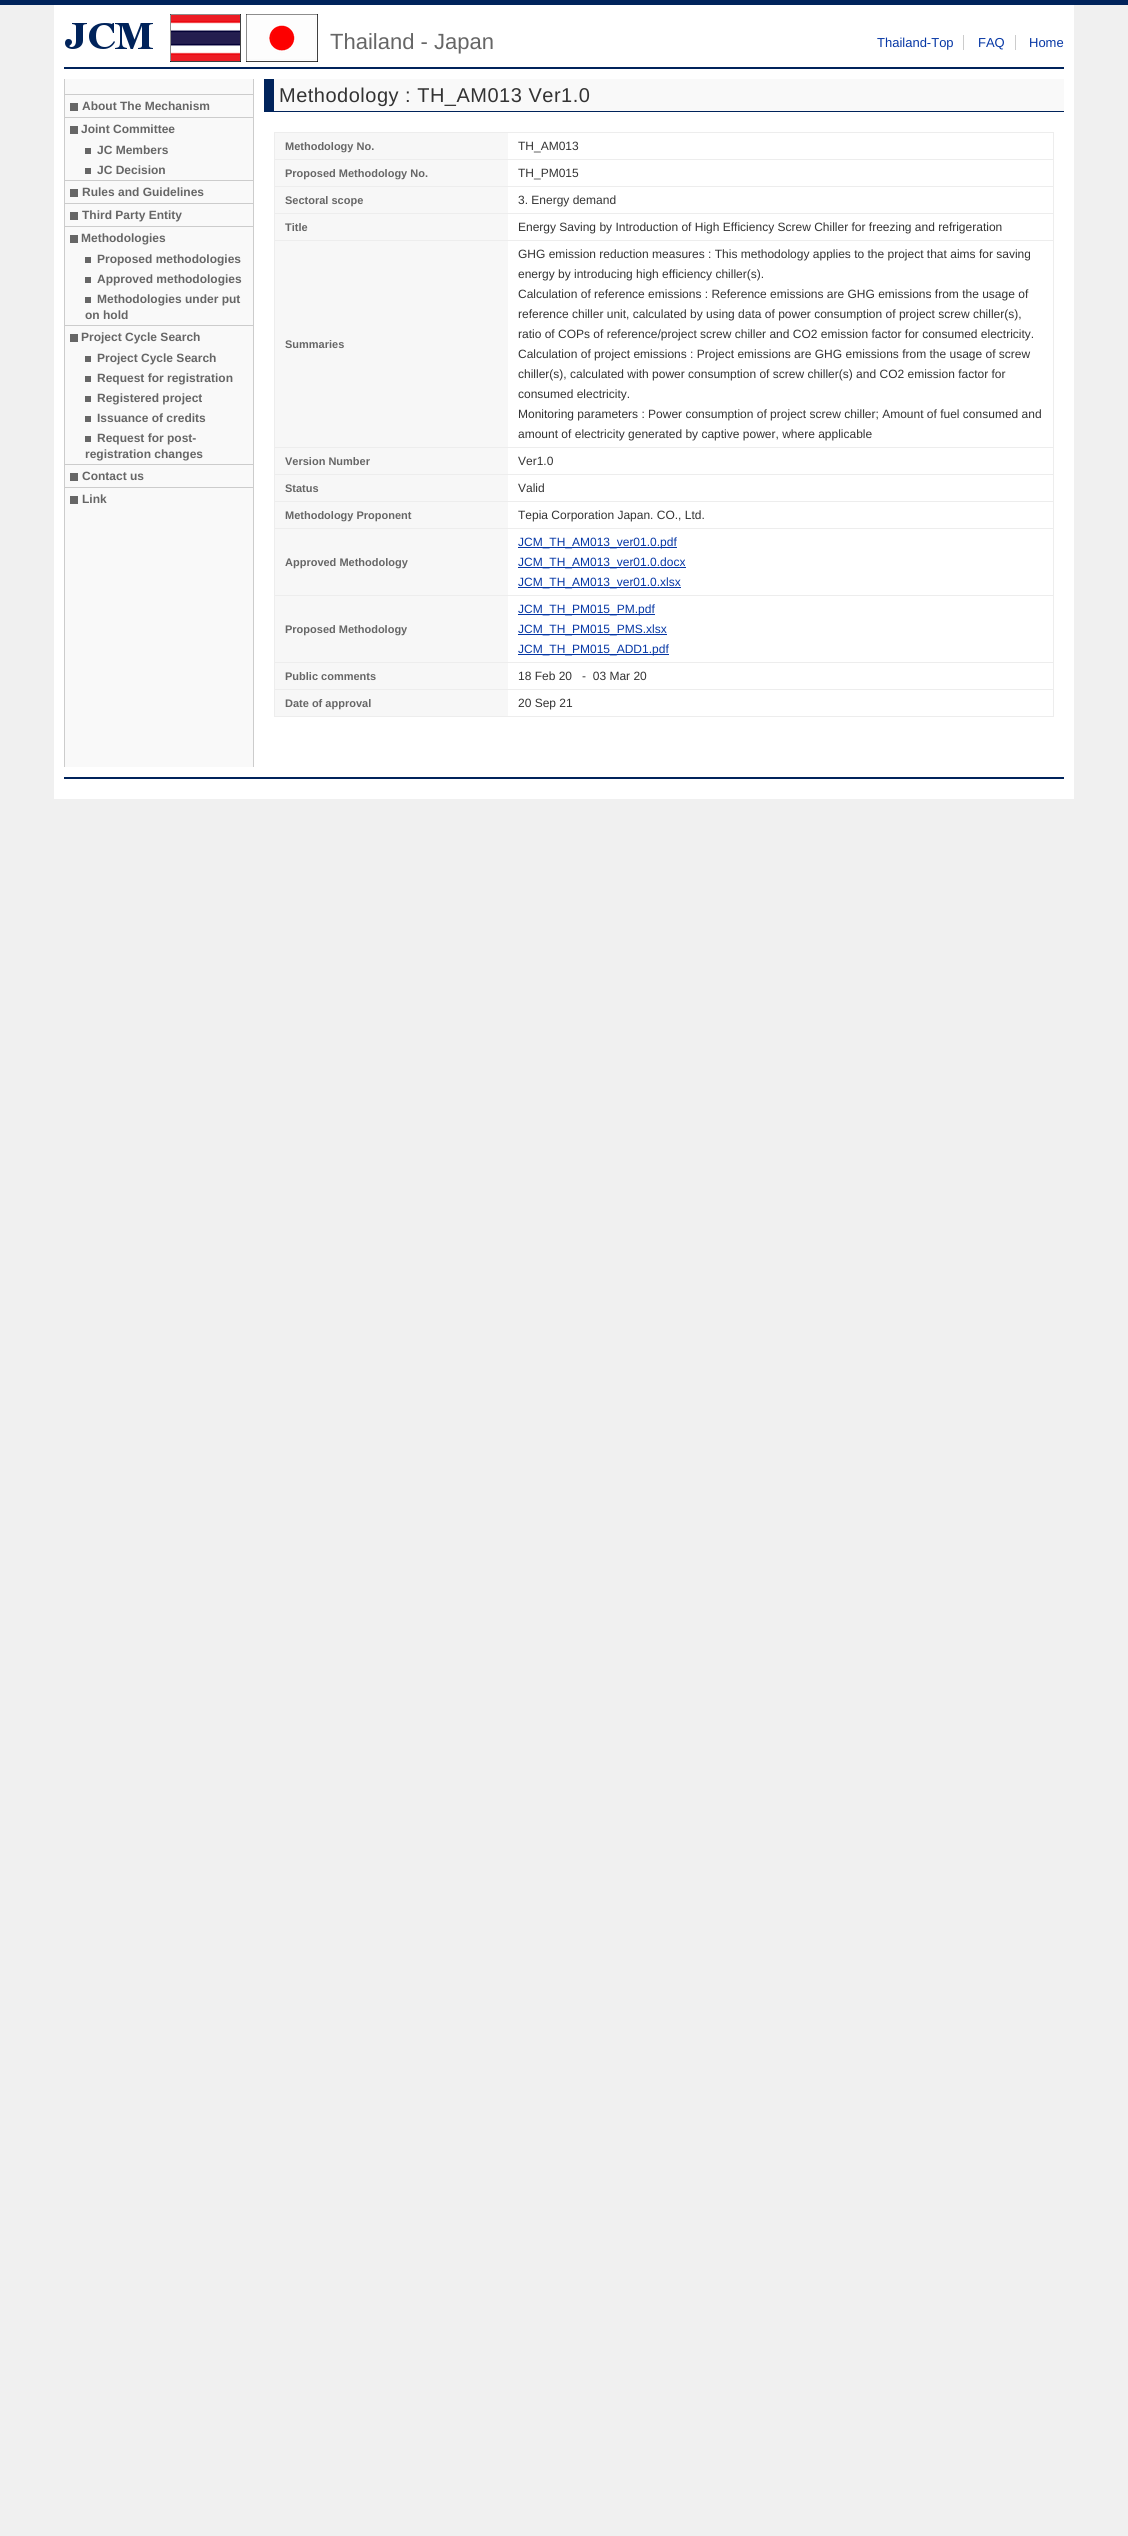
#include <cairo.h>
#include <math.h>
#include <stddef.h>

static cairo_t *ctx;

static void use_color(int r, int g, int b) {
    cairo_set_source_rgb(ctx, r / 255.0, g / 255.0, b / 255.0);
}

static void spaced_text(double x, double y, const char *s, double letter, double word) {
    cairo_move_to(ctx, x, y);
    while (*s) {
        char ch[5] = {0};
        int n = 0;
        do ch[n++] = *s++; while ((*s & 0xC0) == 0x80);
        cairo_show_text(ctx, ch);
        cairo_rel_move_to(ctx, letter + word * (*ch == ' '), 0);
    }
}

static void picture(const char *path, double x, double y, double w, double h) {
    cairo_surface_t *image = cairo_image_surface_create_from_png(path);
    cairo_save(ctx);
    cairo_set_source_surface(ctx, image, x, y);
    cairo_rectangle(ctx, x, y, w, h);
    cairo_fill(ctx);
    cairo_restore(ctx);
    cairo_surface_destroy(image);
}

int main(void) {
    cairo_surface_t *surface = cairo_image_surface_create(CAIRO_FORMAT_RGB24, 1128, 2536);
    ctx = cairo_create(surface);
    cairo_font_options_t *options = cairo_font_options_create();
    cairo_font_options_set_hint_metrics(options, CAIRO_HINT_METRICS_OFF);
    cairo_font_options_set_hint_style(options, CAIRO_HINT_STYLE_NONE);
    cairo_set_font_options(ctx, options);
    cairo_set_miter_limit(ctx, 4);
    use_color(240, 240, 240);
    cairo_paint(ctx);
    use_color(0, 35, 91);
    cairo_rectangle(ctx, 0, 0, 1128, 5);
    cairo_fill(ctx);
    use_color(255, 255, 255);
    cairo_rectangle(ctx, 54, 5, 1020, 794);
    cairo_fill(ctx);
    use_color(0, 35, 91);
    cairo_rectangle(ctx, 64, 67, 1000, 2);
    cairo_fill(ctx);
    picture("img1.png", 65, 14, 253, 48);
    cairo_select_font_face(ctx, "Liberation Sans", CAIRO_FONT_SLANT_NORMAL, CAIRO_FONT_WEIGHT_NORMAL);
    cairo_set_font_size(ctx, 22);
    use_color(102, 102, 102);
    cairo_move_to(ctx, 330, 49);
    cairo_show_text(ctx, "Thailand - Japan");
    cairo_set_font_size(ctx, 13);
    use_color(6, 55, 165);
    cairo_move_to(ctx, 877, 47);
    cairo_show_text(ctx, "Thailand-Top");
    use_color(204, 204, 204);
    cairo_rectangle(ctx, 963, 35, 1, 15);
    cairo_fill(ctx);
    use_color(6, 55, 165);
    cairo_move_to(ctx, 978, 47);
    cairo_show_text(ctx, "FAQ");
    use_color(204, 204, 204);
    cairo_rectangle(ctx, 1015, 35, 1, 15);
    cairo_fill(ctx);
    use_color(6, 55, 165);
    cairo_move_to(ctx, 1029, 47);
    cairo_show_text(ctx, "Home");
    use_color(249, 249, 249);
    cairo_rectangle(ctx, 65, 79, 188, 688);
    cairo_fill(ctx);
    use_color(204, 204, 204);
    cairo_rectangle(ctx, 253, 79, 1, 688);
    cairo_fill(ctx);
    cairo_rectangle(ctx, 64, 79, 1, 688);
    cairo_fill(ctx);
    cairo_rectangle(ctx, 65, 94, 188, 1);
    cairo_fill(ctx);
    use_color(102, 102, 102);
    cairo_rectangle(ctx, 70, 103, 8, 8);
    cairo_fill(ctx);
    cairo_select_font_face(ctx, "Liberation Sans", CAIRO_FONT_SLANT_NORMAL, CAIRO_FONT_WEIGHT_BOLD);
    cairo_set_font_size(ctx, 12);
    cairo_move_to(ctx, 82, 110);
    cairo_show_text(ctx, "About The Mechanism");
    use_color(204, 204, 204);
    cairo_rectangle(ctx, 65, 117, 188, 1);
    cairo_fill(ctx);
    use_color(102, 102, 102);
    cairo_rectangle(ctx, 70, 126, 8, 8);
    cairo_fill(ctx);
    cairo_move_to(ctx, 81, 133);
    cairo_show_text(ctx, "Joint Committee");
    cairo_rectangle(ctx, 85, 148, 6, 6);
    cairo_fill(ctx);
    cairo_move_to(ctx, 97, 154);
    cairo_show_text(ctx, "JC Members");
    cairo_rectangle(ctx, 85, 168, 6, 6);
    cairo_fill(ctx);
    cairo_move_to(ctx, 97, 174);
    cairo_show_text(ctx, "JC Decision");
    use_color(204, 204, 204);
    cairo_rectangle(ctx, 65, 180, 188, 1);
    cairo_fill(ctx);
    use_color(102, 102, 102);
    cairo_rectangle(ctx, 70, 189, 8, 8);
    cairo_fill(ctx);
    cairo_move_to(ctx, 82, 196);
    cairo_show_text(ctx, "Rules and Guidelines");
    use_color(204, 204, 204);
    cairo_rectangle(ctx, 65, 203, 188, 1);
    cairo_fill(ctx);
    use_color(102, 102, 102);
    cairo_rectangle(ctx, 70, 212, 8, 8);
    cairo_fill(ctx);
    cairo_move_to(ctx, 82, 219);
    cairo_show_text(ctx, "Third Party Entity");
    use_color(204, 204, 204);
    cairo_rectangle(ctx, 65, 226, 188, 1);
    cairo_fill(ctx);
    use_color(102, 102, 102);
    cairo_rectangle(ctx, 70, 235, 8, 8);
    cairo_fill(ctx);
    cairo_move_to(ctx, 81, 242);
    cairo_show_text(ctx, "Methodologies");
    cairo_rectangle(ctx, 85, 257, 6, 6);
    cairo_fill(ctx);
    cairo_move_to(ctx, 97, 263);
    cairo_show_text(ctx, "Proposed methodologies");
    cairo_rectangle(ctx, 85, 277, 6, 6);
    cairo_fill(ctx);
    cairo_move_to(ctx, 97, 283);
    cairo_show_text(ctx, "Approved methodologies");
    cairo_rectangle(ctx, 85, 297, 6, 6);
    cairo_fill(ctx);
    cairo_move_to(ctx, 97, 303);
    cairo_show_text(ctx, "Methodologies under put");
    cairo_move_to(ctx, 85, 319);
    cairo_show_text(ctx, "on hold");
    use_color(204, 204, 204);
    cairo_rectangle(ctx, 65, 325, 188, 1);
    cairo_fill(ctx);
    use_color(102, 102, 102);
    cairo_rectangle(ctx, 70, 334, 8, 8);
    cairo_fill(ctx);
    cairo_move_to(ctx, 81, 341);
    cairo_show_text(ctx, "Project Cycle Search");
    cairo_rectangle(ctx, 85, 356, 6, 6);
    cairo_fill(ctx);
    cairo_move_to(ctx, 97, 362);
    cairo_show_text(ctx, "Project Cycle Search");
    cairo_rectangle(ctx, 85, 376, 6, 6);
    cairo_fill(ctx);
    cairo_move_to(ctx, 97, 382);
    cairo_show_text(ctx, "Request for registration");
    cairo_rectangle(ctx, 85, 396, 6, 6);
    cairo_fill(ctx);
    cairo_move_to(ctx, 97, 402);
    cairo_show_text(ctx, "Registered project");
    cairo_rectangle(ctx, 85, 416, 6, 6);
    cairo_fill(ctx);
    cairo_move_to(ctx, 97, 422);
    cairo_show_text(ctx, "Issuance of credits");
    cairo_rectangle(ctx, 85, 436, 6, 6);
    cairo_fill(ctx);
    cairo_move_to(ctx, 97, 442);
    cairo_show_text(ctx, "Request for post-");
    cairo_move_to(ctx, 85, 458);
    cairo_show_text(ctx, "registration changes");
    use_color(204, 204, 204);
    cairo_rectangle(ctx, 65, 464, 188, 1);
    cairo_fill(ctx);
    use_color(102, 102, 102);
    cairo_rectangle(ctx, 70, 473, 8, 8);
    cairo_fill(ctx);
    cairo_move_to(ctx, 82, 480);
    cairo_show_text(ctx, "Contact us");
    use_color(204, 204, 204);
    cairo_rectangle(ctx, 65, 487, 188, 1);
    cairo_fill(ctx);
    use_color(102, 102, 102);
    cairo_rectangle(ctx, 70, 496, 8, 8);
    cairo_fill(ctx);
    cairo_move_to(ctx, 82, 503);
    cairo_show_text(ctx, "Link");
    use_color(249, 249, 249);
    cairo_rectangle(ctx, 274, 79, 790, 32);
    cairo_fill(ctx);
    use_color(0, 35, 91);
    cairo_rectangle(ctx, 274, 111, 790, 1);
    cairo_fill(ctx);
    cairo_rectangle(ctx, 264, 79, 10, 33);
    cairo_fill(ctx);
    cairo_select_font_face(ctx, "Liberation Sans", CAIRO_FONT_SLANT_NORMAL, CAIRO_FONT_WEIGHT_NORMAL);
    cairo_set_font_size(ctx, 20);
    use_color(51, 51, 51);
    spaced_text(279, 102, "Methodology : TH_AM013 Ver1.0", 0.5, 0);
    use_color(237, 237, 237);
    cairo_rectangle(ctx, 274, 132, 780, 1);
    cairo_fill(ctx);
    cairo_rectangle(ctx, 1053, 132, 1, 585);
    cairo_fill(ctx);
    cairo_rectangle(ctx, 274, 716, 780, 1);
    cairo_fill(ctx);
    cairo_rectangle(ctx, 274, 132, 1, 585);
    cairo_fill(ctx);
    use_color(247, 247, 247);
    cairo_rectangle(ctx, 275, 133, 233, 26);
    cairo_fill(ctx);
    cairo_select_font_face(ctx, "Liberation Sans", CAIRO_FONT_SLANT_NORMAL, CAIRO_FONT_WEIGHT_BOLD);
    cairo_set_font_size(ctx, 11);
    use_color(102, 102, 102);
    cairo_move_to(ctx, 285, 150);
    cairo_show_text(ctx, "Methodology No.");
    cairo_select_font_face(ctx, "Liberation Sans", CAIRO_FONT_SLANT_NORMAL, CAIRO_FONT_WEIGHT_NORMAL);
    cairo_set_font_size(ctx, 12);
    use_color(51, 51, 51);
    cairo_move_to(ctx, 518, 150);
    cairo_show_text(ctx, "TH_AM013");
    use_color(237, 237, 237);
    cairo_rectangle(ctx, 274, 159, 780, 1);
    cairo_fill(ctx);
    use_color(247, 247, 247);
    cairo_rectangle(ctx, 275, 160, 233, 26);
    cairo_fill(ctx);
    cairo_select_font_face(ctx, "Liberation Sans", CAIRO_FONT_SLANT_NORMAL, CAIRO_FONT_WEIGHT_BOLD);
    cairo_set_font_size(ctx, 11);
    use_color(102, 102, 102);
    cairo_move_to(ctx, 285, 177);
    cairo_show_text(ctx, "Proposed Methodology No.");
    cairo_select_font_face(ctx, "Liberation Sans", CAIRO_FONT_SLANT_NORMAL, CAIRO_FONT_WEIGHT_NORMAL);
    cairo_set_font_size(ctx, 12);
    use_color(51, 51, 51);
    cairo_move_to(ctx, 518, 177);
    cairo_show_text(ctx, "TH_PM015");
    use_color(237, 237, 237);
    cairo_rectangle(ctx, 274, 186, 780, 1);
    cairo_fill(ctx);
    use_color(247, 247, 247);
    cairo_rectangle(ctx, 275, 187, 233, 26);
    cairo_fill(ctx);
    cairo_select_font_face(ctx, "Liberation Sans", CAIRO_FONT_SLANT_NORMAL, CAIRO_FONT_WEIGHT_BOLD);
    cairo_set_font_size(ctx, 11);
    use_color(102, 102, 102);
    cairo_move_to(ctx, 285, 204);
    cairo_show_text(ctx, "Sectoral scope");
    cairo_select_font_face(ctx, "Liberation Sans", CAIRO_FONT_SLANT_NORMAL, CAIRO_FONT_WEIGHT_NORMAL);
    cairo_set_font_size(ctx, 12);
    use_color(51, 51, 51);
    cairo_move_to(ctx, 518, 204);
    cairo_show_text(ctx, "3. Energy demand");
    use_color(237, 237, 237);
    cairo_rectangle(ctx, 274, 213, 780, 1);
    cairo_fill(ctx);
    use_color(247, 247, 247);
    cairo_rectangle(ctx, 275, 214, 233, 26);
    cairo_fill(ctx);
    cairo_select_font_face(ctx, "Liberation Sans", CAIRO_FONT_SLANT_NORMAL, CAIRO_FONT_WEIGHT_BOLD);
    cairo_set_font_size(ctx, 11);
    use_color(102, 102, 102);
    cairo_move_to(ctx, 285, 231);
    cairo_show_text(ctx, "Title");
    cairo_select_font_face(ctx, "Liberation Sans", CAIRO_FONT_SLANT_NORMAL, CAIRO_FONT_WEIGHT_NORMAL);
    cairo_set_font_size(ctx, 12);
    use_color(51, 51, 51);
    cairo_move_to(ctx, 518, 231);
    cairo_show_text(ctx, "Energy Saving by Introduction of High Efficiency Screw Chiller for freezing and refrigeration");
    use_color(237, 237, 237);
    cairo_rectangle(ctx, 274, 240, 780, 1);
    cairo_fill(ctx);
    use_color(247, 247, 247);
    cairo_rectangle(ctx, 275, 241, 233, 206);
    cairo_fill(ctx);
    cairo_select_font_face(ctx, "Liberation Sans", CAIRO_FONT_SLANT_NORMAL, CAIRO_FONT_WEIGHT_BOLD);
    cairo_set_font_size(ctx, 11);
    use_color(102, 102, 102);
    cairo_move_to(ctx, 285, 348);
    cairo_show_text(ctx, "Summaries");
    cairo_select_font_face(ctx, "Liberation Sans", CAIRO_FONT_SLANT_NORMAL, CAIRO_FONT_WEIGHT_NORMAL);
    cairo_set_font_size(ctx, 12);
    use_color(51, 51, 51);
    cairo_move_to(ctx, 518, 258);
    cairo_show_text(ctx, "GHG emission reduction measures : This methodology applies to the project that aims for saving");
    cairo_move_to(ctx, 518, 278);
    cairo_show_text(ctx, "energy by introducing high efficiency chiller(s).");
    cairo_move_to(ctx, 518, 298);
    cairo_show_text(ctx, "Calculation of reference emissions : Reference emissions are GHG emissions from the usage of");
    cairo_move_to(ctx, 518, 318);
    cairo_show_text(ctx, "reference chiller unit, calculated by using data of power consumption of project screw chiller(s),");
    cairo_move_to(ctx, 518, 338);
    cairo_show_text(ctx, "ratio of COPs of reference/project screw chiller and CO2 emission factor for consumed electricity.");
    cairo_move_to(ctx, 518, 358);
    cairo_show_text(ctx, "Calculation of project emissions : Project emissions are GHG emissions from the usage of screw");
    cairo_move_to(ctx, 518, 378);
    cairo_show_text(ctx, "chiller(s), calculated with power consumption of screw chiller(s) and CO2 emission factor for");
    cairo_move_to(ctx, 518, 398);
    cairo_show_text(ctx, "consumed electricity.");
    cairo_move_to(ctx, 518, 418);
    cairo_show_text(ctx, "Monitoring parameters : Power consumption of project screw chiller; Amount of fuel consumed and");
    cairo_move_to(ctx, 518, 438);
    cairo_show_text(ctx, "amount of electricity generated by captive power, where applicable");
    use_color(237, 237, 237);
    cairo_rectangle(ctx, 274, 447, 780, 1);
    cairo_fill(ctx);
    use_color(247, 247, 247);
    cairo_rectangle(ctx, 275, 448, 233, 26);
    cairo_fill(ctx);
    cairo_select_font_face(ctx, "Liberation Sans", CAIRO_FONT_SLANT_NORMAL, CAIRO_FONT_WEIGHT_BOLD);
    cairo_set_font_size(ctx, 11);
    use_color(102, 102, 102);
    cairo_move_to(ctx, 285, 465);
    cairo_show_text(ctx, "Version Number");
    cairo_select_font_face(ctx, "Liberation Sans", CAIRO_FONT_SLANT_NORMAL, CAIRO_FONT_WEIGHT_NORMAL);
    cairo_set_font_size(ctx, 12);
    use_color(51, 51, 51);
    cairo_move_to(ctx, 518, 465);
    cairo_show_text(ctx, "Ver1.0");
    use_color(237, 237, 237);
    cairo_rectangle(ctx, 274, 474, 780, 1);
    cairo_fill(ctx);
    use_color(247, 247, 247);
    cairo_rectangle(ctx, 275, 475, 233, 26);
    cairo_fill(ctx);
    cairo_select_font_face(ctx, "Liberation Sans", CAIRO_FONT_SLANT_NORMAL, CAIRO_FONT_WEIGHT_BOLD);
    cairo_set_font_size(ctx, 11);
    use_color(102, 102, 102);
    cairo_move_to(ctx, 285, 492);
    cairo_show_text(ctx, "Status");
    cairo_select_font_face(ctx, "Liberation Sans", CAIRO_FONT_SLANT_NORMAL, CAIRO_FONT_WEIGHT_NORMAL);
    cairo_set_font_size(ctx, 12);
    use_color(51, 51, 51);
    cairo_move_to(ctx, 518, 492);
    cairo_show_text(ctx, "Valid");
    use_color(237, 237, 237);
    cairo_rectangle(ctx, 274, 501, 780, 1);
    cairo_fill(ctx);
    use_color(247, 247, 247);
    cairo_rectangle(ctx, 275, 502, 233, 26);
    cairo_fill(ctx);
    cairo_select_font_face(ctx, "Liberation Sans", CAIRO_FONT_SLANT_NORMAL, CAIRO_FONT_WEIGHT_BOLD);
    cairo_set_font_size(ctx, 11);
    use_color(102, 102, 102);
    cairo_move_to(ctx, 285, 519);
    cairo_show_text(ctx, "Methodology Proponent");
    cairo_select_font_face(ctx, "Liberation Sans", CAIRO_FONT_SLANT_NORMAL, CAIRO_FONT_WEIGHT_NORMAL);
    cairo_set_font_size(ctx, 12);
    use_color(51, 51, 51);
    cairo_move_to(ctx, 518, 519);
    cairo_show_text(ctx, "Tepia Corporation Japan. CO., Ltd.");
    use_color(237, 237, 237);
    cairo_rectangle(ctx, 274, 528, 780, 1);
    cairo_fill(ctx);
    use_color(247, 247, 247);
    cairo_rectangle(ctx, 275, 529, 233, 66);
    cairo_fill(ctx);
    cairo_select_font_face(ctx, "Liberation Sans", CAIRO_FONT_SLANT_NORMAL, CAIRO_FONT_WEIGHT_BOLD);
    cairo_set_font_size(ctx, 11);
    use_color(102, 102, 102);
    cairo_move_to(ctx, 285, 566);
    cairo_show_text(ctx, "Approved Methodology");
    use_color(6, 55, 165);
    cairo_rectangle(ctx, 518, 547, 159, 1);
    cairo_fill(ctx);
    cairo_select_font_face(ctx, "Liberation Sans", CAIRO_FONT_SLANT_NORMAL, CAIRO_FONT_WEIGHT_NORMAL);
    cairo_set_font_size(ctx, 12);
    cairo_move_to(ctx, 518, 546);
    cairo_show_text(ctx, "JCM_TH_AM013_ver01.0.pdf");
    cairo_rectangle(ctx, 518, 567, 168, 1);
    cairo_fill(ctx);
    cairo_move_to(ctx, 518, 566);
    cairo_show_text(ctx, "JCM_TH_AM013_ver01.0.docx");
    cairo_rectangle(ctx, 518, 587, 163, 1);
    cairo_fill(ctx);
    cairo_move_to(ctx, 518, 586);
    cairo_show_text(ctx, "JCM_TH_AM013_ver01.0.xlsx");
    use_color(237, 237, 237);
    cairo_rectangle(ctx, 274, 595, 780, 1);
    cairo_fill(ctx);
    use_color(247, 247, 247);
    cairo_rectangle(ctx, 275, 596, 233, 66);
    cairo_fill(ctx);
    cairo_select_font_face(ctx, "Liberation Sans", CAIRO_FONT_SLANT_NORMAL, CAIRO_FONT_WEIGHT_BOLD);
    cairo_set_font_size(ctx, 11);
    use_color(102, 102, 102);
    cairo_move_to(ctx, 285, 633);
    cairo_show_text(ctx, "Proposed Methodology");
    use_color(6, 55, 165);
    cairo_rectangle(ctx, 518, 614, 137, 1);
    cairo_fill(ctx);
    cairo_select_font_face(ctx, "Liberation Sans", CAIRO_FONT_SLANT_NORMAL, CAIRO_FONT_WEIGHT_NORMAL);
    cairo_set_font_size(ctx, 12);
    cairo_move_to(ctx, 518, 613);
    cairo_show_text(ctx, "JCM_TH_PM015_PM.pdf");
    cairo_rectangle(ctx, 518, 634, 149, 1);
    cairo_fill(ctx);
    cairo_move_to(ctx, 518, 633);
    cairo_show_text(ctx, "JCM_TH_PM015_PMS.xlsx");
    cairo_rectangle(ctx, 518, 654, 151, 1);
    cairo_fill(ctx);
    cairo_move_to(ctx, 518, 653);
    cairo_show_text(ctx, "JCM_TH_PM015_ADD1.pdf");
    use_color(237, 237, 237);
    cairo_rectangle(ctx, 274, 662, 780, 1);
    cairo_fill(ctx);
    use_color(247, 247, 247);
    cairo_rectangle(ctx, 275, 663, 233, 26);
    cairo_fill(ctx);
    cairo_select_font_face(ctx, "Liberation Sans", CAIRO_FONT_SLANT_NORMAL, CAIRO_FONT_WEIGHT_BOLD);
    cairo_set_font_size(ctx, 11);
    use_color(102, 102, 102);
    cairo_move_to(ctx, 285, 680);
    cairo_show_text(ctx, "Public comments");
    cairo_select_font_face(ctx, "Liberation Sans", CAIRO_FONT_SLANT_NORMAL, CAIRO_FONT_WEIGHT_NORMAL);
    cairo_set_font_size(ctx, 12);
    use_color(51, 51, 51);
    cairo_move_to(ctx, 518, 680);
    cairo_show_text(ctx, "18 Feb 20   -  03 Mar 20");
    use_color(237, 237, 237);
    cairo_rectangle(ctx, 274, 689, 780, 1);
    cairo_fill(ctx);
    use_color(247, 247, 247);
    cairo_rectangle(ctx, 275, 690, 233, 26);
    cairo_fill(ctx);
    cairo_select_font_face(ctx, "Liberation Sans", CAIRO_FONT_SLANT_NORMAL, CAIRO_FONT_WEIGHT_BOLD);
    cairo_set_font_size(ctx, 11);
    use_color(102, 102, 102);
    cairo_move_to(ctx, 285, 707);
    cairo_show_text(ctx, "Date of approval");
    cairo_select_font_face(ctx, "Liberation Sans", CAIRO_FONT_SLANT_NORMAL, CAIRO_FONT_WEIGHT_NORMAL);
    cairo_set_font_size(ctx, 12);
    use_color(51, 51, 51);
    cairo_move_to(ctx, 518, 707);
    cairo_show_text(ctx, "20 Sep 21");
    use_color(0, 35, 91);
    cairo_rectangle(ctx, 64, 777, 1000, 2);
    cairo_fill(ctx);
    cairo_surface_write_to_png(surface, "result.png");
    cairo_font_options_destroy(options);
    cairo_destroy(ctx);
    cairo_surface_destroy(surface);
    return 0;
}
